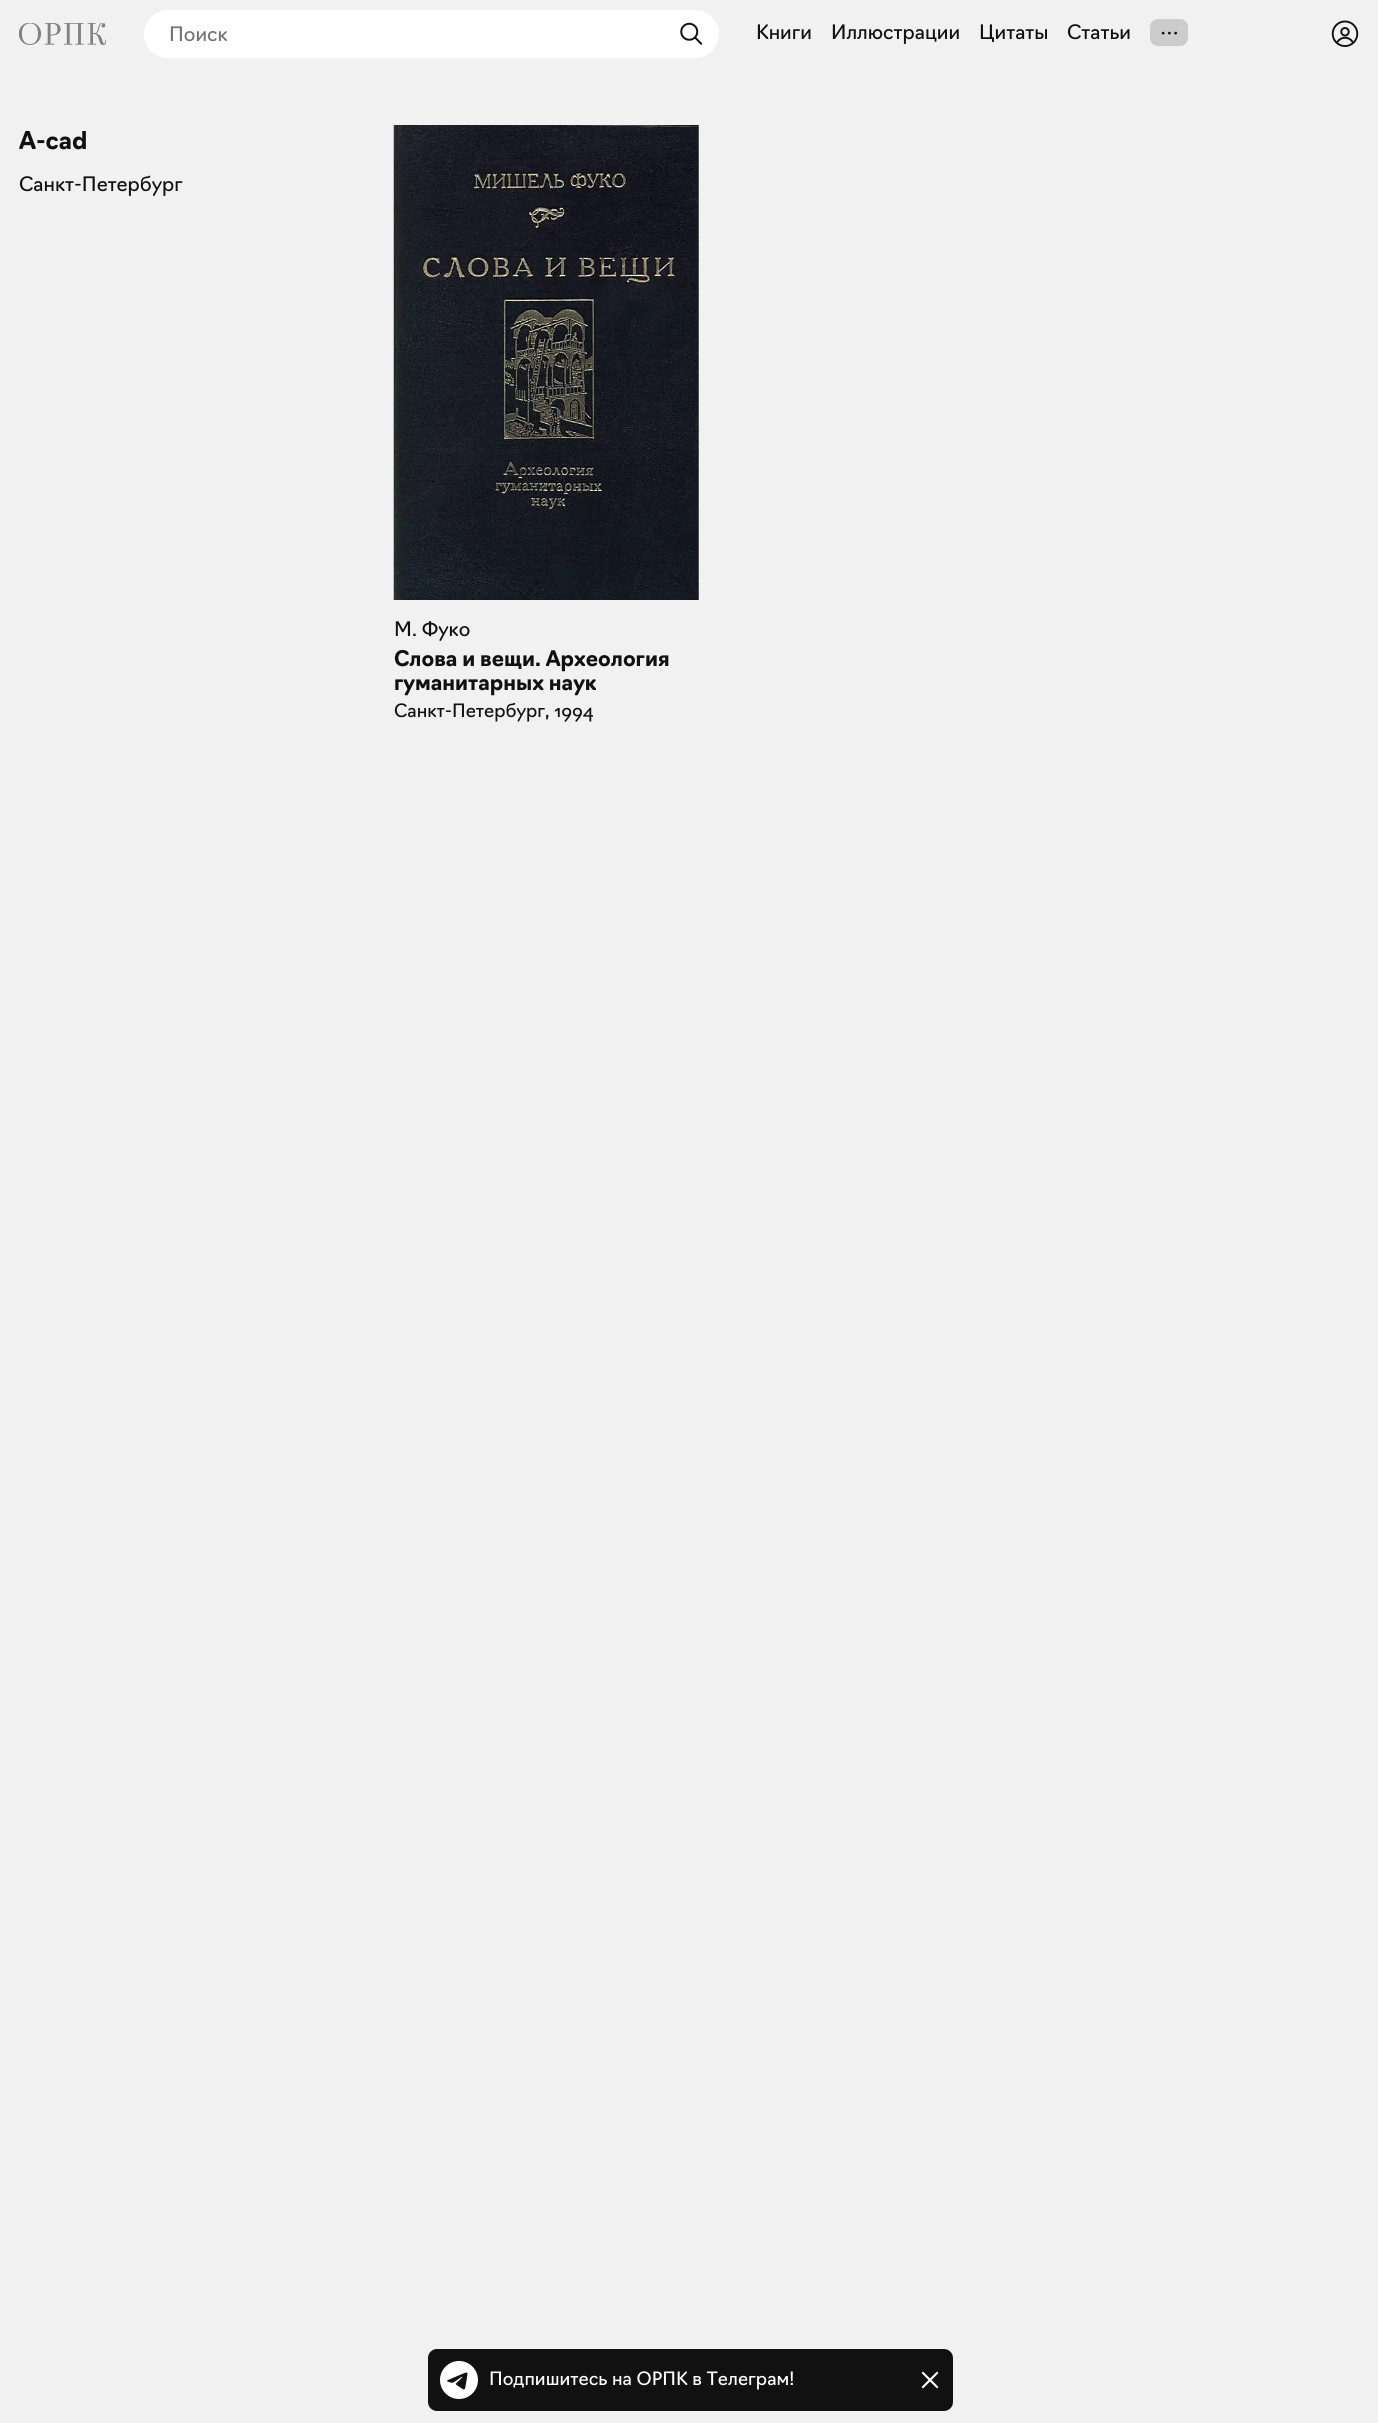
#include <cairo.h>
#include <math.h>
#include <stddef.h>

static cairo_t *ctx;

static void use_color(int r, int g, int b) {
    cairo_set_source_rgb(ctx, r / 255.0, g / 255.0, b / 255.0);
}

static void round_rect(double x, double y, double w, double h, double r) {
    cairo_new_sub_path(ctx);
    cairo_arc(ctx, x + w - r, y + h - r, r, 0, M_PI / 2);
    cairo_arc(ctx, x + r, y + h - r, r, M_PI / 2, M_PI);
    cairo_arc(ctx, x + r, y + r, r, M_PI, 1.5 * M_PI);
    cairo_arc(ctx, x + w - r, y + r, r, 1.5 * M_PI, 2 * M_PI);
    cairo_close_path(ctx);
}

static void picture(const char *path, double x, double y, double w, double h) {
    cairo_surface_t *image = cairo_image_surface_create_from_png(path);
    cairo_save(ctx);
    cairo_set_source_surface(ctx, image, x, y);
    cairo_rectangle(ctx, x, y, w, h);
    cairo_fill(ctx);
    cairo_restore(ctx);
    cairo_surface_destroy(image);
}

int main(void) {
    cairo_surface_t *surface = cairo_image_surface_create(CAIRO_FORMAT_RGB24, 1378, 2423);
    ctx = cairo_create(surface);
    cairo_font_options_t *options = cairo_font_options_create();
    cairo_font_options_set_hint_metrics(options, CAIRO_HINT_METRICS_OFF);
    cairo_font_options_set_hint_style(options, CAIRO_HINT_STYLE_NONE);
    cairo_set_font_options(ctx, options);
    cairo_set_miter_limit(ctx, 4);
    use_color(241, 241, 241);
    cairo_paint(ctx);
    picture("img1.png", 19, 23, 87, 22);
    use_color(255, 255, 255);
    round_rect(144, 10, 575, 48, 24);
    cairo_fill(ctx);
    cairo_select_font_face(ctx, "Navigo", CAIRO_FONT_SLANT_NORMAL, CAIRO_FONT_WEIGHT_NORMAL);
    cairo_set_font_size(ctx, 19.5);
    use_color(117, 117, 117);
    cairo_move_to(ctx, 169, 41);
    cairo_show_text(ctx, "Поиск");
    picture("img2.png", 680, 22, 23, 23);
    use_color(17, 17, 17);
    cairo_move_to(ctx, 756, 39);
    cairo_show_text(ctx, "Книги");
    cairo_move_to(ctx, 831, 39);
    cairo_show_text(ctx, "Иллюстрации");
    cairo_move_to(ctx, 979, 39);
    cairo_show_text(ctx, "Цитаты");
    cairo_move_to(ctx, 1067, 39);
    cairo_show_text(ctx, "Статьи");
    use_color(204, 204, 204);
    round_rect(1150, 19, 38, 27, 8);
    cairo_fill(ctx);
    picture("img3.png", 1161, 31, 16, 4);
    picture("img4.png", 1331, 20, 28, 27);
    cairo_select_font_face(ctx, "Navigo", CAIRO_FONT_SLANT_NORMAL, CAIRO_FONT_WEIGHT_BOLD);
    cairo_set_font_size(ctx, 24);
    use_color(17, 17, 17);
    cairo_move_to(ctx, 19, 149);
    cairo_show_text(ctx, "А-cad");
    cairo_select_font_face(ctx, "Navigo", CAIRO_FONT_SLANT_NORMAL, CAIRO_FONT_WEIGHT_NORMAL);
    cairo_set_font_size(ctx, 19.5);
    cairo_move_to(ctx, 19, 191);
    cairo_show_text(ctx, "Санкт-Петербург");
    picture("img5.png", 393, 125, 306, 475);
    cairo_move_to(ctx, 394, 636);
    cairo_show_text(ctx, "М. Фуко");
    cairo_select_font_face(ctx, "Navigo", CAIRO_FONT_SLANT_NORMAL, CAIRO_FONT_WEIGHT_BOLD);
    cairo_set_font_size(ctx, 21);
    cairo_move_to(ctx, 394, 666);
    cairo_show_text(ctx, "Слова и вещи. Археология");
    cairo_move_to(ctx, 394, 690);
    cairo_show_text(ctx, "гуманитарных наук");
    cairo_select_font_face(ctx, "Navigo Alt", CAIRO_FONT_SLANT_NORMAL, CAIRO_FONT_WEIGHT_NORMAL);
    cairo_set_font_size(ctx, 18);
    cairo_move_to(ctx, 394, 717);
    cairo_show_text(ctx, "Санкт-Петербург, 1994");
    round_rect(428, 2349, 525, 62, 9);
    cairo_fill(ctx);
    picture("img6.png", 440, 2361, 38, 38);
    cairo_select_font_face(ctx, "Navigo", CAIRO_FONT_SLANT_NORMAL, CAIRO_FONT_WEIGHT_NORMAL);
    use_color(255, 255, 255);
    cairo_move_to(ctx, 489, 2385);
    cairo_show_text(ctx, "Подпишитесь на ОРПК в Телеграм!");
    picture("img7.png", 921, 2371, 18, 18);
    cairo_surface_write_to_png(surface, "result.png");
    cairo_font_options_destroy(options);
    cairo_destroy(ctx);
    cairo_surface_destroy(surface);
    return 0;
}
